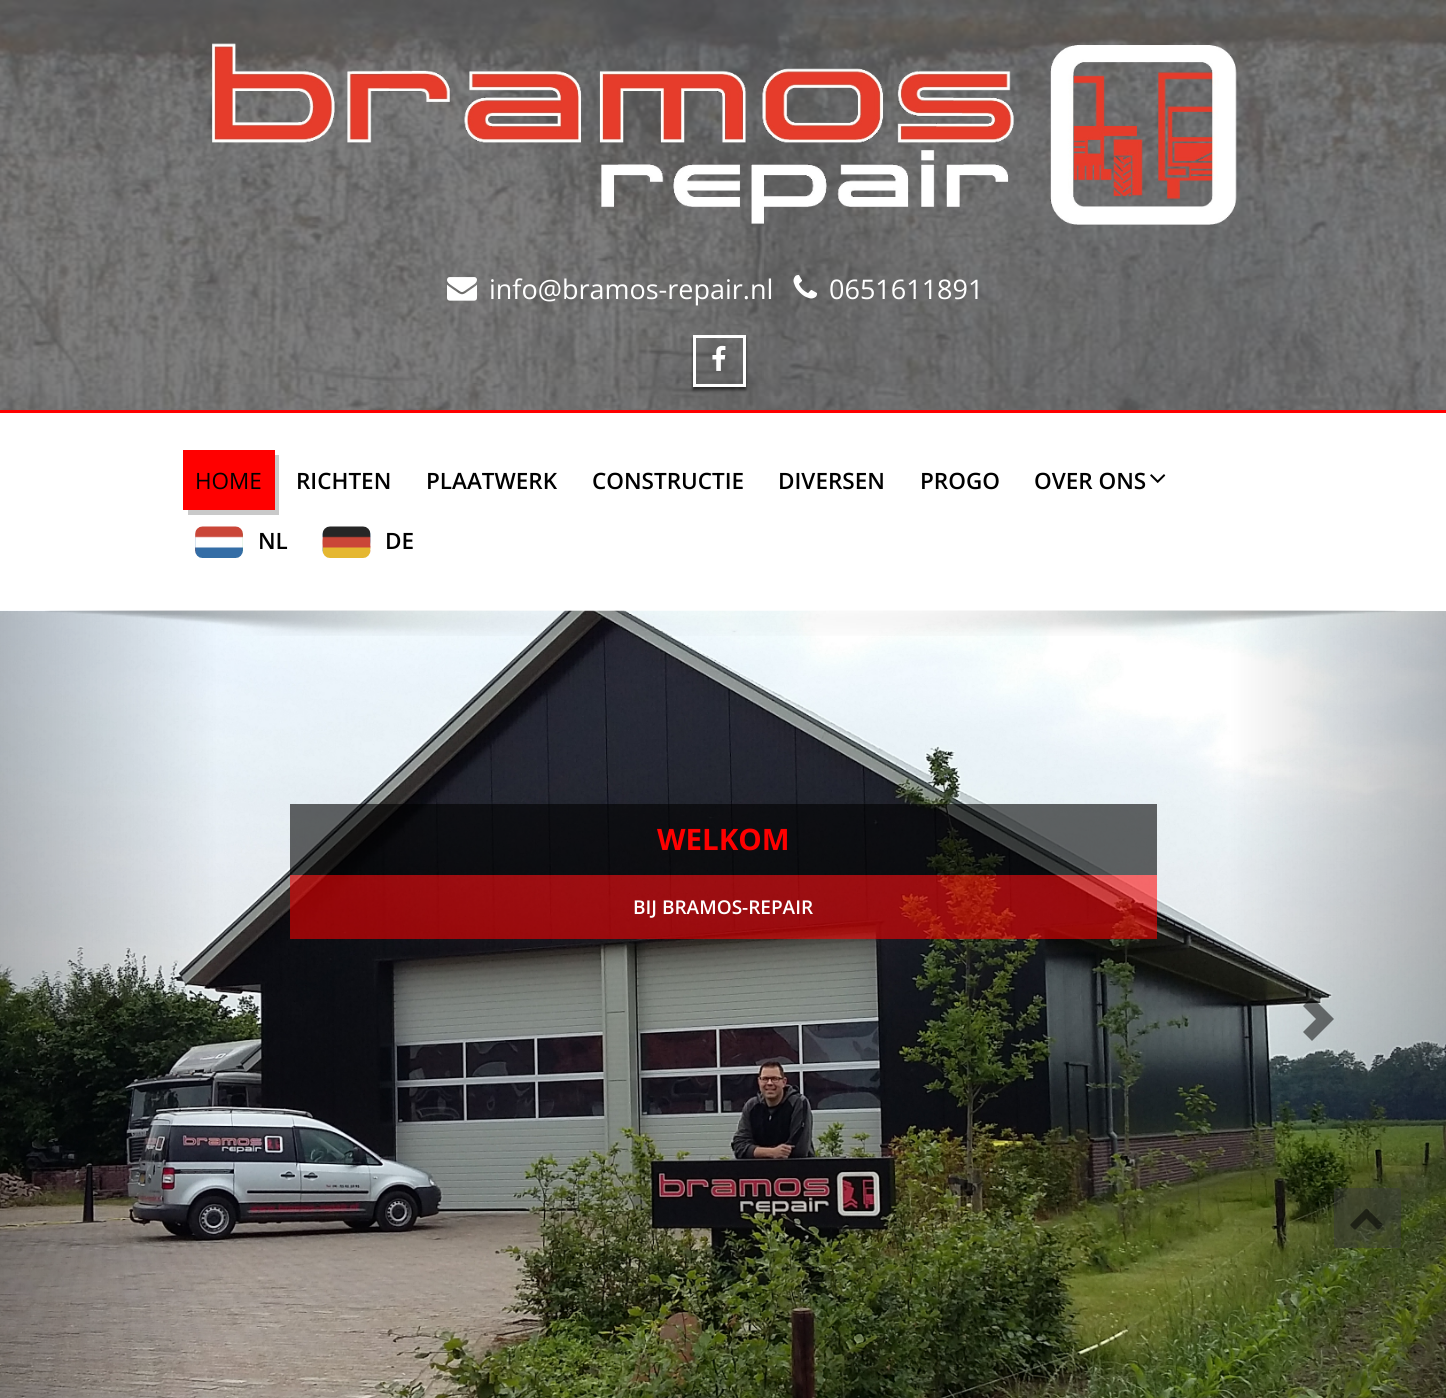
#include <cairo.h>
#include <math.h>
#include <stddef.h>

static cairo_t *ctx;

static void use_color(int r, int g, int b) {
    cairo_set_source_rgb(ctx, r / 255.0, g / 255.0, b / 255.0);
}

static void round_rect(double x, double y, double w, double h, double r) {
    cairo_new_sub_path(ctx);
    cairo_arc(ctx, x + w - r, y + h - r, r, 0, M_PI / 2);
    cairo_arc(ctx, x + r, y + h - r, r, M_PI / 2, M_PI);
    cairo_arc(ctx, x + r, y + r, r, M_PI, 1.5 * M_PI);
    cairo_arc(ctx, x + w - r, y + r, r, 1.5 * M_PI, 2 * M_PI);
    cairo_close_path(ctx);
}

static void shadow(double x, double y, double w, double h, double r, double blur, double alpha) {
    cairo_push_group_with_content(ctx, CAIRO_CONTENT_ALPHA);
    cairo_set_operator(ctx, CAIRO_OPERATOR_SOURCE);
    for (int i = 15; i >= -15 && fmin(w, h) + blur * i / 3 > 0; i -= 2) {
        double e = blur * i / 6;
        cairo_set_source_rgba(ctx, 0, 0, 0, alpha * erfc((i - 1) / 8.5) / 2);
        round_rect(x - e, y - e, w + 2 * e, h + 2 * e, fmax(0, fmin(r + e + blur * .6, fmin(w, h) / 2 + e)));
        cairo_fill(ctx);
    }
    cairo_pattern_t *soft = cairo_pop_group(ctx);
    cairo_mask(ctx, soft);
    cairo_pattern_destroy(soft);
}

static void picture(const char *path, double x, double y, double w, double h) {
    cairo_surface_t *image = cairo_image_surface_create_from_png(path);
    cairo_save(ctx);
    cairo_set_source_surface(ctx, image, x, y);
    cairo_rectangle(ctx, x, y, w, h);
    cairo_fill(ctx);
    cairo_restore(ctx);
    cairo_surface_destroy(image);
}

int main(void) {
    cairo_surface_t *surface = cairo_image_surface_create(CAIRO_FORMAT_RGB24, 1446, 1398);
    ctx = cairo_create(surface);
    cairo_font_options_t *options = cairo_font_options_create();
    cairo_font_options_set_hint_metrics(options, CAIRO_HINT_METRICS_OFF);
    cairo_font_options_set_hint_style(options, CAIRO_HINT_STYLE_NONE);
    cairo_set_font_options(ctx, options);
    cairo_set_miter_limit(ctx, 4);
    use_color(255, 255, 255);
    cairo_paint(ctx);
    picture("img1.png", 0, 0, 1446, 410);
    cairo_set_source_rgba(ctx, 0, 0, 0, 0.5);
    cairo_rectangle(ctx, 0, 0, 1446, 410);
    cairo_fill(ctx);
    picture("img2.png", 212, 43, 1025, 182);
    picture("img3.png", 447, 277, 30, 24);
    cairo_select_font_face(ctx, "Open Sans", CAIRO_FONT_SLANT_NORMAL, CAIRO_FONT_WEIGHT_NORMAL);
    cairo_set_font_size(ctx, 27);
    use_color(255, 255, 255);
    cairo_move_to(ctx, 489, 299);
    cairo_show_text(ctx, "info@bramos-repair.nl");
    picture("img4.png", 793, 274, 25, 25);
    cairo_move_to(ctx, 829, 299);
    cairo_show_text(ctx, "0651611891");
    cairo_save(ctx);
    cairo_set_fill_rule(ctx, CAIRO_FILL_RULE_EVEN_ODD);
    cairo_new_path(ctx);
    cairo_move_to(ctx, 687, 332);
    cairo_line_to(ctx, 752, 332);
    cairo_line_to(ctx, 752, 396);
    cairo_line_to(ctx, 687, 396);
    cairo_close_path(ctx);
    cairo_move_to(ctx, 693, 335);
    cairo_line_to(ctx, 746, 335);
    cairo_line_to(ctx, 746, 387);
    cairo_line_to(ctx, 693, 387);
    cairo_close_path(ctx);
    cairo_clip(ctx);
    use_color(0, 0, 0);
    shadow(693, 338, 53, 52, 0, 1.5, 0.6);
    cairo_restore(ctx);
    cairo_rectangle(ctx, 694.5, 336.5, 50, 49);
    cairo_set_line_width(ctx, 3);
    cairo_stroke(ctx);
    picture("img5.png", 712, 345, 14, 26);
    use_color(255, 0, 0);
    cairo_rectangle(ctx, 0, 410, 1446, 3);
    cairo_fill(ctx);
    use_color(201, 201, 201);
    cairo_new_path(ctx);
    cairo_move_to(ctx, 188, 510);
    cairo_line_to(ctx, 188, 515);
    cairo_line_to(ctx, 279, 515);
    cairo_line_to(ctx, 279, 455);
    cairo_line_to(ctx, 274, 455);
    cairo_line_to(ctx, 274, 510);
    cairo_close_path(ctx);
    cairo_fill(ctx);
    use_color(255, 0, 0);
    cairo_rectangle(ctx, 183, 450, 92, 60);
    cairo_fill(ctx);
    cairo_set_font_size(ctx, 22.5);
    use_color(0, 0, 0);
    cairo_move_to(ctx, 195, 489);
    cairo_show_text(ctx, "HOME");
    cairo_select_font_face(ctx, "Open Sans SemiBold", CAIRO_FONT_SLANT_NORMAL, CAIRO_FONT_WEIGHT_NORMAL);
    cairo_move_to(ctx, 296, 489);
    cairo_show_text(ctx, "RICHTEN");
    cairo_move_to(ctx, 426, 489);
    cairo_show_text(ctx, "PLAATWERK");
    cairo_move_to(ctx, 592, 489);
    cairo_show_text(ctx, "CONSTRUCTIE");
    cairo_move_to(ctx, 778, 489);
    cairo_show_text(ctx, "DIVERSEN");
    cairo_move_to(ctx, 920, 489);
    cairo_show_text(ctx, "PROGO");
    cairo_move_to(ctx, 1034, 489);
    cairo_show_text(ctx, "OVER ONS");
    picture("img6.png", 1150, 474, 16, 9);
    picture("img7.png", 195, 526, 48, 32);
    cairo_move_to(ctx, 258, 549);
    cairo_show_text(ctx, "NL");
    picture("img8.png", 322, 526, 49, 32);
    cairo_move_to(ctx, 385, 549);
    cairo_show_text(ctx, "DE");
    picture("img10.png", 0, 610, 1446, 788);
    picture("img9.png", 45, 610, 1356, 26);
    cairo_set_source_rgba(ctx, 0, 0, 0, 0.6);
    cairo_rectangle(ctx, 290, 804, 867, 71);
    cairo_fill(ctx);
    cairo_select_font_face(ctx, "Open Sans", CAIRO_FONT_SLANT_NORMAL, CAIRO_FONT_WEIGHT_BOLD);
    cairo_set_font_size(ctx, 29.5);
    use_color(255, 0, 0);
    cairo_move_to(ctx, 657, 850);
    cairo_show_text(ctx, "WELKOM");
    cairo_set_source_rgba(ctx, 1, 0, 0, 0.56);
    cairo_rectangle(ctx, 290, 875, 867, 64);
    cairo_fill(ctx);
    cairo_select_font_face(ctx, "Open Sans SemiBold", CAIRO_FONT_SLANT_NORMAL, CAIRO_FONT_WEIGHT_NORMAL);
    cairo_set_font_size(ctx, 19);
    use_color(255, 255, 255);
    cairo_move_to(ctx, 633, 914);
    cairo_show_text(ctx, "BIJ BRAMOS-REPAIR");
    cairo_set_source_rgba(ctx, 0, 0, 0, 0.5);
    cairo_new_path(ctx);
    cairo_move_to(ctx, 92, 1017);
    cairo_line_to(ctx, 115, 1039);
    cairo_line_to(ctx, 124, 1030);
    cairo_line_to(ctx, 110, 1017);
    cairo_line_to(ctx, 124, 1004);
    cairo_line_to(ctx, 115, 995);
    cairo_close_path(ctx);
    cairo_fill(ctx);
    cairo_new_path(ctx);
    cairo_move_to(ctx, 1303, 1032);
    cairo_line_to(ctx, 1316, 1019);
    cairo_line_to(ctx, 1303, 1006);
    cairo_line_to(ctx, 1312, 997);
    cairo_line_to(ctx, 1334, 1019);
    cairo_line_to(ctx, 1312, 1041);
    cairo_close_path(ctx);
    cairo_fill(ctx);
    cairo_set_source_rgba(ctx, 0.231, 0.231, 0.231, 0.5);
    round_rect(1334, 1188, 67, 60, 3);
    cairo_fill(ctx);
    picture("img11.png", 1350, 1208, 33, 22);
    cairo_surface_write_to_png(surface, "result.png");
    cairo_font_options_destroy(options);
    cairo_destroy(ctx);
    cairo_surface_destroy(surface);
    return 0;
}
